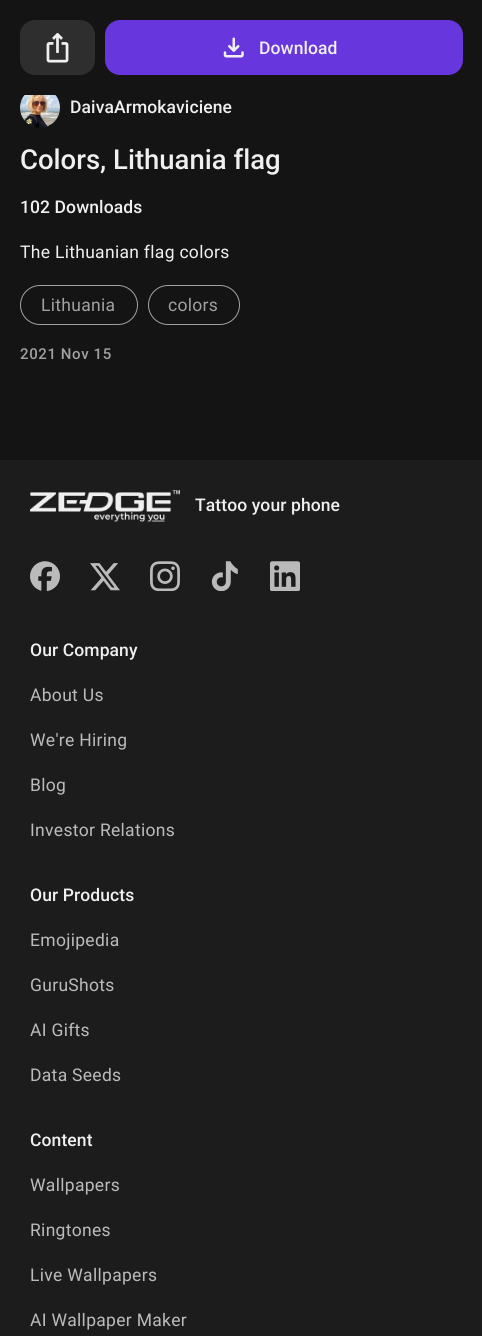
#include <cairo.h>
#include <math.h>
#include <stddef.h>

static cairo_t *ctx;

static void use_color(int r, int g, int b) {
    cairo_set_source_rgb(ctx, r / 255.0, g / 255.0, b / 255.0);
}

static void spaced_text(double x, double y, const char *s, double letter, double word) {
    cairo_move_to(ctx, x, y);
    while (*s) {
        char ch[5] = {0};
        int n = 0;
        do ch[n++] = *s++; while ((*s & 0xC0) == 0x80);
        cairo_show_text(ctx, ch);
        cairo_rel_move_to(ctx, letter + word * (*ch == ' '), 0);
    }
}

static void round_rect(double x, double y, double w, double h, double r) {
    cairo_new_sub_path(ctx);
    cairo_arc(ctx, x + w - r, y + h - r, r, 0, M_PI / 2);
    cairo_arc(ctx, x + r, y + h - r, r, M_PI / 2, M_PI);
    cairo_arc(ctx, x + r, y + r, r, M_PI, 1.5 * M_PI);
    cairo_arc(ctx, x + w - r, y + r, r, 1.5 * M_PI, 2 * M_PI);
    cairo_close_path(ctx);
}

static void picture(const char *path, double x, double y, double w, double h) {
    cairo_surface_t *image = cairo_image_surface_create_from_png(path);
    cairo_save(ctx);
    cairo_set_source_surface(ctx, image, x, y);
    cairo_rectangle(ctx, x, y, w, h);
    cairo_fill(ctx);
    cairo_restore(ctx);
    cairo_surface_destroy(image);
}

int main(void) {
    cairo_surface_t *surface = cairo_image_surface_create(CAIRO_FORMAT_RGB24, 482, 1336);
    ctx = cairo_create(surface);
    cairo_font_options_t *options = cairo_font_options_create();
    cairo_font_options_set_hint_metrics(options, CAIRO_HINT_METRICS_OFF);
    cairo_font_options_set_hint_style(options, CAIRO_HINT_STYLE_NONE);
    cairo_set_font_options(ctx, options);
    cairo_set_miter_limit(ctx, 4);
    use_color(20, 20, 20);
    cairo_paint(ctx);
    use_color(46, 46, 46);
    round_rect(20, 20, 75, 55, 15);
    cairo_fill(ctx);
    picture("img1.png", 46, 33, 23, 30);
    use_color(104, 54, 221);
    round_rect(105, 20, 358, 55, 15);
    cairo_fill(ctx);
    picture("img2.png", 223, 37, 21, 21);
    cairo_select_font_face(ctx, "Roboto Medium", CAIRO_FONT_SLANT_NORMAL, CAIRO_FONT_WEIGHT_NORMAL);
    cairo_set_font_size(ctx, 17.5);
    use_color(240, 240, 240);
    spaced_text(259, 54, "Download", 0.1, 0);
    picture("img3.png", 20, 95, 40, 33);
    spaced_text(70, 113, "DaivaArmokaviciene", 0.1, 0);
    cairo_set_font_size(ctx, 27.5);
    cairo_move_to(ctx, 20, 169);
    cairo_show_text(ctx, "Colors, Lithuania flag");
    cairo_set_font_size(ctx, 17.5);
    spaced_text(20, 213, "102 Downloads", 0.1, 0);
    cairo_select_font_face(ctx, "Roboto", CAIRO_FONT_SLANT_NORMAL, CAIRO_FONT_WEIGHT_NORMAL);
    spaced_text(20, 258, "The Lithuanian flag colors", 0.3, 0);
    round_rect(20.5, 285.5, 117, 39, 19.5);
    use_color(161, 161, 161);
    cairo_set_line_width(ctx, 1);
    cairo_stroke(ctx);
    spaced_text(41, 311, "Lithuania", 0.3, 0);
    round_rect(148.5, 285.5, 91, 39, 19.5);
    cairo_stroke(ctx);
    spaced_text(168, 311, "colors", 0.3, 0);
    cairo_select_font_face(ctx, "Roboto Medium", CAIRO_FONT_SLANT_NORMAL, CAIRO_FONT_WEIGHT_NORMAL);
    cairo_set_font_size(ctx, 15);
    spaced_text(20, 359, "2021 Nov 15", 0.6, 0);
    use_color(28, 28, 28);
    cairo_rectangle(ctx, 0, 460, 482, 876);
    cairo_fill(ctx);
    picture("img4.png", 30, 490, 150, 22);
    picture("img5.png", 94, 512, 71, 10);
    cairo_set_font_size(ctx, 17.5);
    use_color(240, 240, 240);
    spaced_text(195, 511, "Tattoo your phone", 0.1, 0);
    picture("img6.png", 30, 561, 30, 30);
    picture("img7.png", 90, 563, 30, 28);
    picture("img8.png", 150, 561, 30, 30);
    picture("img9.png", 211, 561, 27, 30);
    picture("img10.png", 270, 561, 30, 30);
    spaced_text(30, 656, "Our Company", 0.1, 0);
    cairo_select_font_face(ctx, "Roboto", CAIRO_FONT_SLANT_NORMAL, CAIRO_FONT_WEIGHT_NORMAL);
    use_color(187, 187, 187);
    spaced_text(30, 701, "About Us", 0.3, 0);
    spaced_text(30, 746, "We're Hiring", 0.3, 0);
    spaced_text(30, 791, "Blog", 0.3, 0);
    spaced_text(30, 836, "Investor Relations", 0.3, 0);
    cairo_select_font_face(ctx, "Roboto Medium", CAIRO_FONT_SLANT_NORMAL, CAIRO_FONT_WEIGHT_NORMAL);
    use_color(240, 240, 240);
    spaced_text(30, 901, "Our Products", 0.1, 0);
    cairo_select_font_face(ctx, "Roboto", CAIRO_FONT_SLANT_NORMAL, CAIRO_FONT_WEIGHT_NORMAL);
    use_color(187, 187, 187);
    spaced_text(30, 946, "Emojipedia", 0.3, 0);
    spaced_text(30, 991, "GuruShots", 0.3, 0);
    spaced_text(30, 1036, "AI Gifts", 0.3, 0);
    spaced_text(30, 1081, "Data Seeds", 0.3, 0);
    cairo_select_font_face(ctx, "Roboto Medium", CAIRO_FONT_SLANT_NORMAL, CAIRO_FONT_WEIGHT_NORMAL);
    use_color(240, 240, 240);
    spaced_text(30, 1146, "Content", 0.1, 0);
    cairo_select_font_face(ctx, "Roboto", CAIRO_FONT_SLANT_NORMAL, CAIRO_FONT_WEIGHT_NORMAL);
    use_color(187, 187, 187);
    spaced_text(30, 1191, "Wallpapers", 0.3, 0);
    spaced_text(30, 1236, "Ringtones", 0.3, 0);
    spaced_text(30, 1281, "Live Wallpapers", 0.3, 0);
    spaced_text(30, 1326, "AI Wallpaper Maker", 0.3, 0);
    cairo_surface_write_to_png(surface, "result.png");
    cairo_font_options_destroy(options);
    cairo_destroy(ctx);
    cairo_surface_destroy(surface);
    return 0;
}
